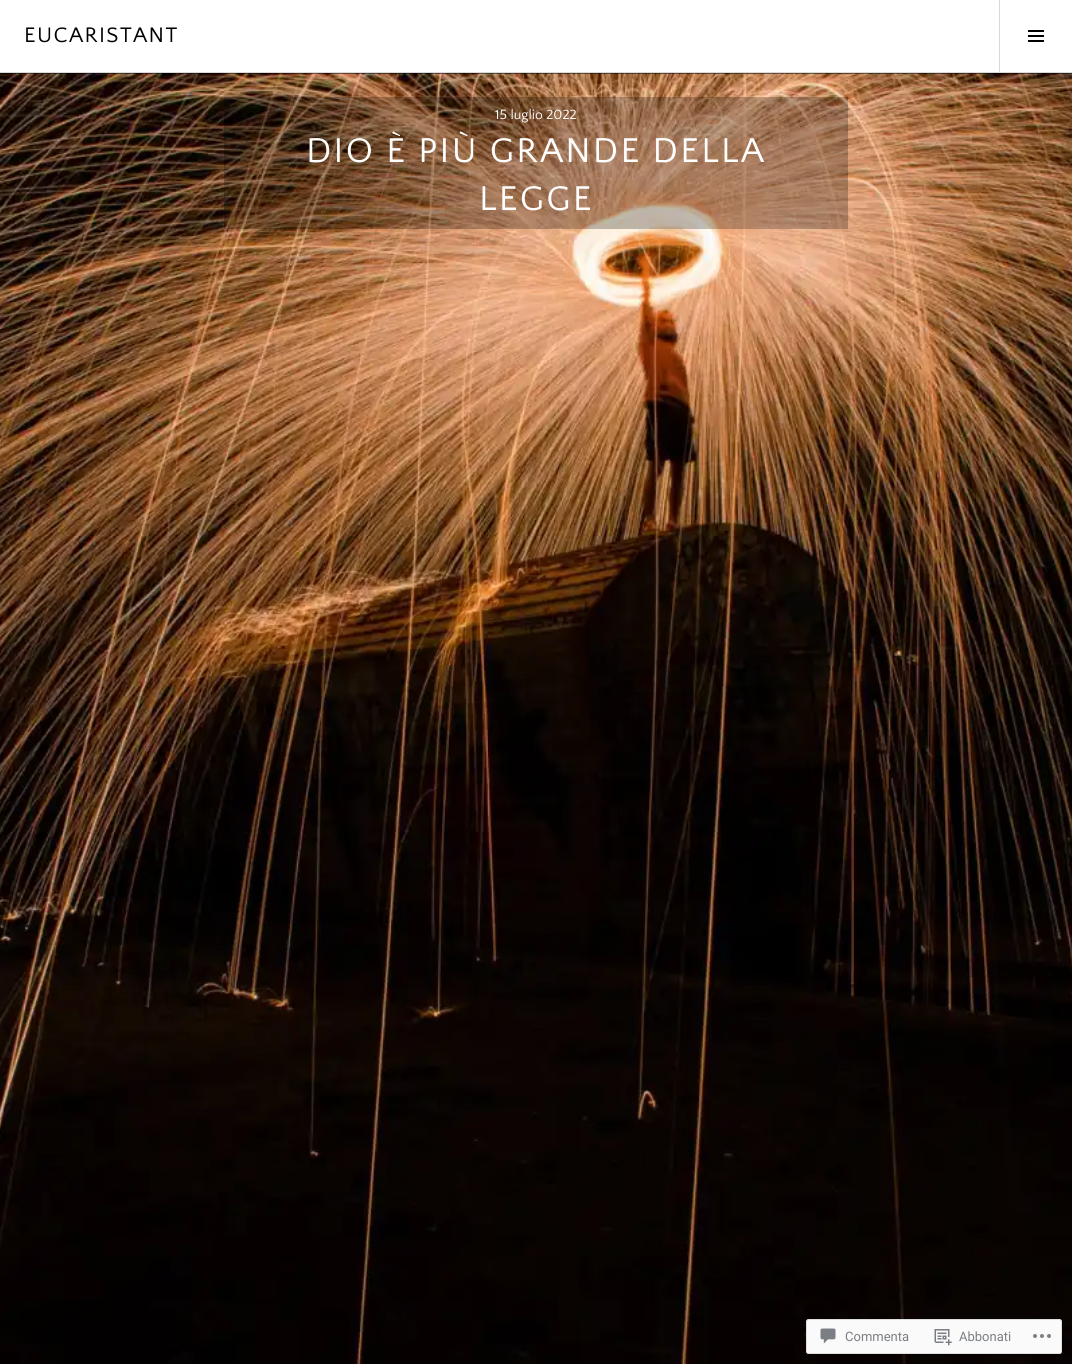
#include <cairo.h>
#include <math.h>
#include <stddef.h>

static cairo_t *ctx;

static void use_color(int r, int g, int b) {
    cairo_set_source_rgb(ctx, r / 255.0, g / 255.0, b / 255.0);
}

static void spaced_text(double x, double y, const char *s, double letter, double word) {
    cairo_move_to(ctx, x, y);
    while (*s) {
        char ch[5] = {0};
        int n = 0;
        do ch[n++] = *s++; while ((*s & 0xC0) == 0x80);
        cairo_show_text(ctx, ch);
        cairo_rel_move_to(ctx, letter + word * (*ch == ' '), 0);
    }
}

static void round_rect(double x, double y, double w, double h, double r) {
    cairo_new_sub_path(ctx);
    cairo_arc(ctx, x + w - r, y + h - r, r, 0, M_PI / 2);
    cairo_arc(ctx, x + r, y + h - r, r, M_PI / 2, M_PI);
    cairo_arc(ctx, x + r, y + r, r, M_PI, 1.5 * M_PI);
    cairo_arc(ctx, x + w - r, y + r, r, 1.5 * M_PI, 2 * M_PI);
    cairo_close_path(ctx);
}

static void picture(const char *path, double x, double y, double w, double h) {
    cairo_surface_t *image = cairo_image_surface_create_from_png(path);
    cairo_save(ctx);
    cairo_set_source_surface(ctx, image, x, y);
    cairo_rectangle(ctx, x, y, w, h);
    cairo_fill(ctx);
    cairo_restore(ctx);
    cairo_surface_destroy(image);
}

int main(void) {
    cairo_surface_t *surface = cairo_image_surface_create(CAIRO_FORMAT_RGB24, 1072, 1364);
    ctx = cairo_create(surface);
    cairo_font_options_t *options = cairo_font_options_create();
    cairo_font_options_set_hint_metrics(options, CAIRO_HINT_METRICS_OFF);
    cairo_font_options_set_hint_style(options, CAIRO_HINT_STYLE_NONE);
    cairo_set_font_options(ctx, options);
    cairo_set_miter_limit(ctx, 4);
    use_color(255, 255, 255);
    cairo_paint(ctx);
    use_color(217, 217, 217);
    cairo_rectangle(ctx, 0, 72, 1072, 1);
    cairo_fill(ctx);
    cairo_select_font_face(ctx, "Quattrocento Sans", CAIRO_FONT_SLANT_NORMAL, CAIRO_FONT_WEIGHT_NORMAL);
    cairo_set_font_size(ctx, 22);
    use_color(0, 0, 0);
    spaced_text(24, 42, "EUCARISTANT", 1.4, 0);
    use_color(217, 217, 217);
    cairo_rectangle(ctx, 999, 0, 1, 72);
    cairo_fill(ctx);
    picture("img1.png", 1028, 30, 16, 12);
    use_color(0, 0, 0);
    cairo_rectangle(ctx, 0, 73, 1072, 1);
    cairo_fill(ctx);
    picture("img2.png", 0, 73, 1072, 1291);
    cairo_set_source_rgba(ctx, 0, 0, 0, 0.25);
    cairo_rectangle(ctx, 224, 97, 624, 132);
    cairo_fill(ctx);
    cairo_set_font_size(ctx, 14);
    use_color(255, 255, 255);
    cairo_move_to(ctx, 495, 119);
    cairo_show_text(ctx, "15 luglio 2022");
    cairo_set_font_size(ctx, 36);
    spaced_text(306, 162, "DIO È PIÙ GRANDE DELLA", 2.25, 0);
    spaced_text(479, 210, "LEGGE", 2.25, 0);
    cairo_set_source_rgba(ctx, 1, 1, 1, 0.98);
    round_rect(806, 1319, 256, 35, 3);
    cairo_fill(ctx);
    round_rect(806.5, 1319.5, 255, 34, 2.5);
    cairo_set_source_rgba(ctx, 0.863, 0.863, 0.871, 0.98);
    cairo_set_line_width(ctx, 1);
    cairo_stroke(ctx);
    picture("img3.png", 820, 1328, 16, 16);
    cairo_select_font_face(ctx, "Roboto", CAIRO_FONT_SLANT_NORMAL, CAIRO_FONT_WEIGHT_NORMAL);
    cairo_set_font_size(ctx, 13);
    use_color(123, 127, 132);
    cairo_move_to(ctx, 845, 1341);
    cairo_show_text(ctx, "Commenta");
    picture("img4.png", 934, 1329, 18, 17);
    cairo_move_to(ctx, 959, 1341);
    cairo_show_text(ctx, "Abbonati");
    picture("img5.png", 1033, 1334, 18, 4);
    cairo_surface_write_to_png(surface, "result.png");
    cairo_font_options_destroy(options);
    cairo_destroy(ctx);
    cairo_surface_destroy(surface);
    return 0;
}
